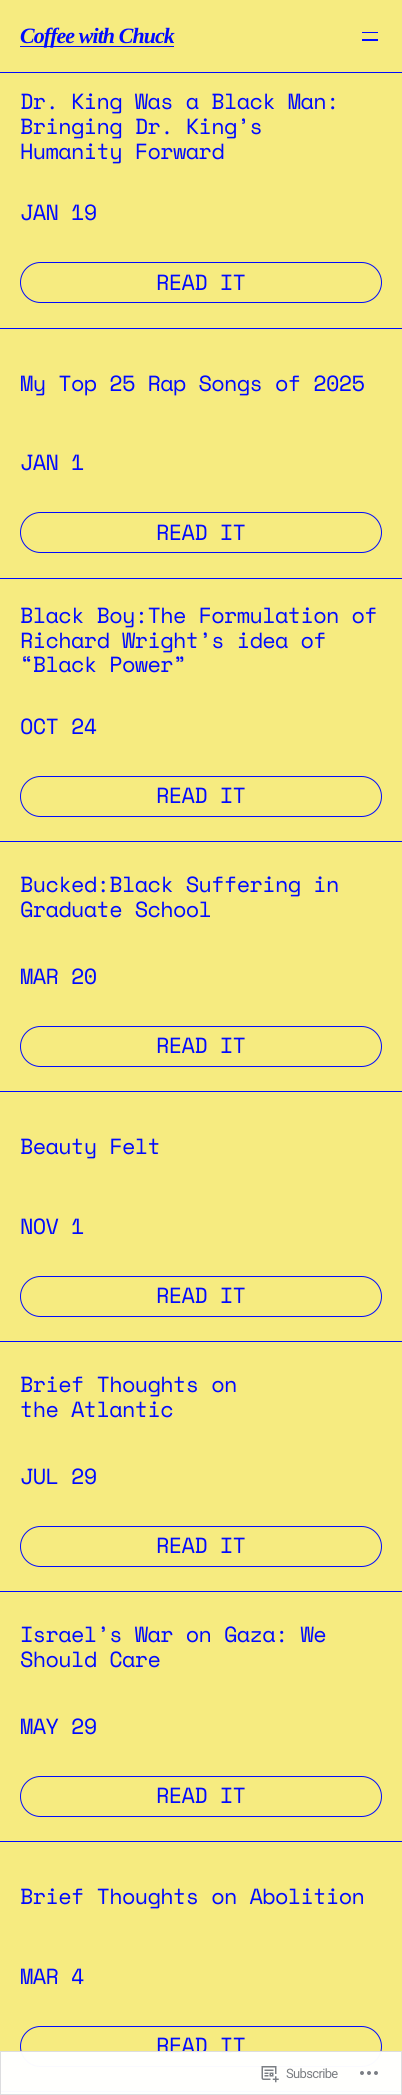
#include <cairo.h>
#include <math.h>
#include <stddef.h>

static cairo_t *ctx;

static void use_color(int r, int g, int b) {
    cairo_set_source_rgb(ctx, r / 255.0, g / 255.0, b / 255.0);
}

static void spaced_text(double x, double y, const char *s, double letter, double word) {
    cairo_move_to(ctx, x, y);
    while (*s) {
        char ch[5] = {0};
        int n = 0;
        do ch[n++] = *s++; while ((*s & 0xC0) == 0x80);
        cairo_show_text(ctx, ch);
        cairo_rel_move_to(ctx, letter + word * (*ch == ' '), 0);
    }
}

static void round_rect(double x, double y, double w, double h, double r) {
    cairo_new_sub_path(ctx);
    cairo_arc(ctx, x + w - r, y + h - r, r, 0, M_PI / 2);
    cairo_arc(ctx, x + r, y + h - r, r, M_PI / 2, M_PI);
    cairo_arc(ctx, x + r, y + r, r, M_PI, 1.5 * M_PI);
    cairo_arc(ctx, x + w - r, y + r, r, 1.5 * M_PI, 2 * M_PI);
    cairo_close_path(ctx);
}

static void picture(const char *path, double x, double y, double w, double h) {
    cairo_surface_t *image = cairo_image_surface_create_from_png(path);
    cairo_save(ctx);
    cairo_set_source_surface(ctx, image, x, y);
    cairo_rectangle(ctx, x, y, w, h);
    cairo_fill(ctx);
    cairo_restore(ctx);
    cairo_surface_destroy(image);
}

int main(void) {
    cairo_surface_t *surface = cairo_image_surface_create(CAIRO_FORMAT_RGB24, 402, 2095);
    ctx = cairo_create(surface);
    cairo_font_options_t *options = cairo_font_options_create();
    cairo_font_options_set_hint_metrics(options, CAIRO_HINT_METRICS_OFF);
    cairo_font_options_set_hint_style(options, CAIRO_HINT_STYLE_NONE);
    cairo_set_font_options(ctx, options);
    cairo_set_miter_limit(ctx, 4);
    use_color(246, 235, 128);
    cairo_paint(ctx);
    use_color(0, 10, 255);
    cairo_rectangle(ctx, 20, 46, 154, 1);
    cairo_fill(ctx);
    cairo_select_font_face(ctx, "Liberation Serif", CAIRO_FONT_SLANT_ITALIC, CAIRO_FONT_WEIGHT_BOLD);
    cairo_set_font_size(ctx, 21.9);
    spaced_text(20, 43, "Coffee with Chuck", -0.9, 0);
    cairo_rectangle(ctx, 362, 32, 16, 1);
    cairo_fill(ctx);
    cairo_rectangle(ctx, 362, 39, 16, 2);
    cairo_fill(ctx);
    cairo_rectangle(ctx, 0, 72, 402, 1);
    cairo_fill(ctx);
    cairo_select_font_face(ctx, "Space Mono", CAIRO_FONT_SLANT_NORMAL, CAIRO_FONT_WEIGHT_NORMAL);
    spaced_text(20, 109, "Dr. King Was a Black Man:", -0.65, 0);
    spaced_text(20, 134, "Bringing Dr. King’s", -0.65, 0);
    spaced_text(20, 159, "Humanity Forward", -0.65, 0);
    spaced_text(20, 220, "JAN 19", -0.65, 0);
    round_rect(20.5, 262.5, 361, 40, 20);
    cairo_set_line_width(ctx, 1);
    cairo_stroke(ctx);
    spaced_text(156, 290, "READ IT", -0.65, 0);
    cairo_rectangle(ctx, 0, 328, 402, 1);
    cairo_fill(ctx);
    spaced_text(20, 391, "My Top 25 Rap Songs of 2025", -0.65, 0);
    spaced_text(20, 470, "JAN 1", -0.65, 0);
    round_rect(20.5, 512.5, 361, 40, 20);
    cairo_stroke(ctx);
    spaced_text(156, 540, "READ IT", -0.65, 0);
    cairo_rectangle(ctx, 0, 578, 402, 1);
    cairo_fill(ctx);
    spaced_text(20, 623, "Black Boy:The Formulation of", -0.65, 0);
    spaced_text(20, 648, "Richard Wright’s idea of", -0.65, 0);
    spaced_text(20, 672, "“Black Power”", -0.65, 0);
    spaced_text(20, 734, "OCT 24", -0.65, 0);
    round_rect(20.5, 776.5, 361, 40, 20);
    cairo_stroke(ctx);
    spaced_text(156, 803, "READ IT", -0.65, 0);
    cairo_rectangle(ctx, 0, 841, 402, 1);
    cairo_fill(ctx);
    spaced_text(20, 892, "Bucked:Black Suffering in", -0.65, 0);
    spaced_text(20, 917, "Graduate School", -0.65, 0);
    spaced_text(20, 984, "MAR 20", -0.65, 0);
    round_rect(20.5, 1026.5, 361, 40, 20);
    cairo_stroke(ctx);
    spaced_text(156, 1053, "READ IT", -0.65, 0);
    cairo_rectangle(ctx, 0, 1091, 402, 1);
    cairo_fill(ctx);
    spaced_text(20, 1154, "Beauty Felt", -0.65, 0);
    spaced_text(20, 1234, "NOV 1", -0.65, 0);
    round_rect(20.5, 1276.5, 361, 40, 20);
    cairo_stroke(ctx);
    spaced_text(156, 1303, "READ IT", -0.65, 0);
    cairo_rectangle(ctx, 0, 1341, 402, 1);
    cairo_fill(ctx);
    spaced_text(20, 1392, "Brief Thoughts on", -0.65, 0);
    spaced_text(20, 1417, "the Atlantic", -0.65, 0);
    spaced_text(20, 1484, "JUL 29", -0.65, 0);
    round_rect(20.5, 1526.5, 361, 40, 20);
    cairo_stroke(ctx);
    spaced_text(156, 1553, "READ IT", -0.65, 0);
    cairo_rectangle(ctx, 0, 1591, 402, 1);
    cairo_fill(ctx);
    spaced_text(20, 1642, "Israel’s War on Gaza: We", -0.65, 0);
    spaced_text(20, 1667, "Should Care", -0.65, 0);
    spaced_text(20, 1734, "MAY 29", -0.65, 0);
    round_rect(20.5, 1776.5, 361, 40, 20);
    cairo_stroke(ctx);
    spaced_text(156, 1803, "READ IT", -0.65, 0);
    cairo_rectangle(ctx, 0, 1841, 402, 1);
    cairo_fill(ctx);
    spaced_text(20, 1904, "Brief Thoughts on Abolition", -0.65, 0);
    spaced_text(20, 1984, "MAR 4", -0.65, 0);
    round_rect(20.5, 2026.5, 361, 40, 20);
    cairo_stroke(ctx);
    spaced_text(156, 2053, "READ IT", -0.65, 0);
    cairo_rectangle(ctx, 0, 2091, 402, 1);
    cairo_fill(ctx);
    cairo_set_source_rgba(ctx, 1, 1, 1, 0.98);
    cairo_rectangle(ctx, 0, 2051, 402, 44);
    cairo_fill(ctx);
    cairo_rectangle(ctx, 0.5, 2051.5, 401, 43);
    cairo_set_source_rgba(ctx, 0.863, 0.863, 0.871, 0.98);
    cairo_stroke(ctx);
    picture("img1.png", 261, 2066, 18, 17);
    cairo_select_font_face(ctx, "Roboto", CAIRO_FONT_SLANT_NORMAL, CAIRO_FONT_WEIGHT_NORMAL);
    cairo_set_font_size(ctx, 13);
    use_color(123, 126, 130);
    spaced_text(286, 2078, "Subscribe", -0.65, 0);
    picture("img2.png", 360, 2071, 18, 4);
    cairo_surface_write_to_png(surface, "result.png");
    cairo_font_options_destroy(options);
    cairo_destroy(ctx);
    cairo_surface_destroy(surface);
    return 0;
}
